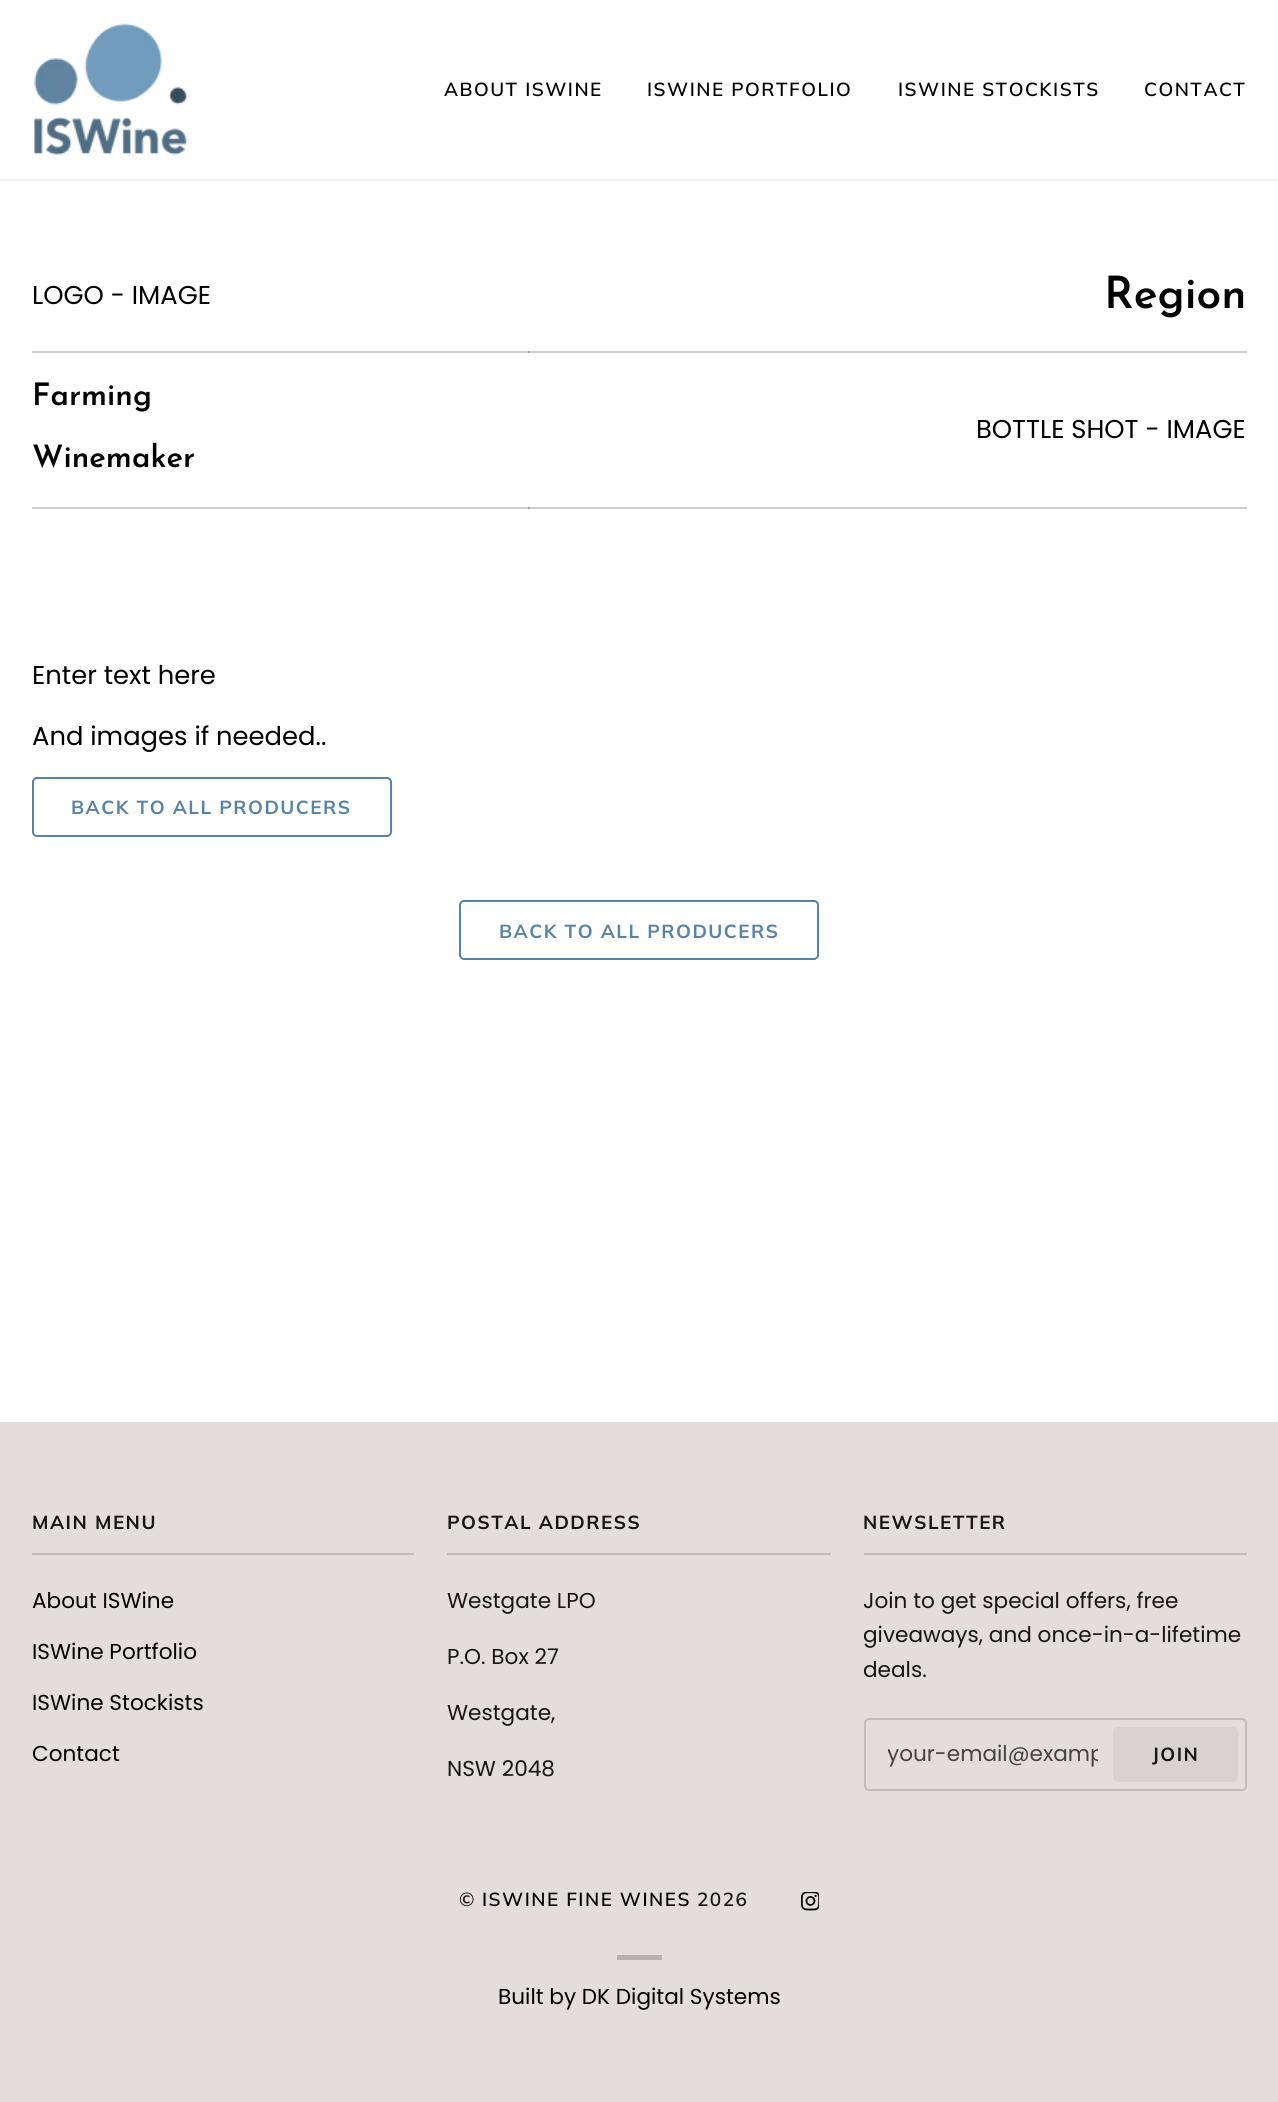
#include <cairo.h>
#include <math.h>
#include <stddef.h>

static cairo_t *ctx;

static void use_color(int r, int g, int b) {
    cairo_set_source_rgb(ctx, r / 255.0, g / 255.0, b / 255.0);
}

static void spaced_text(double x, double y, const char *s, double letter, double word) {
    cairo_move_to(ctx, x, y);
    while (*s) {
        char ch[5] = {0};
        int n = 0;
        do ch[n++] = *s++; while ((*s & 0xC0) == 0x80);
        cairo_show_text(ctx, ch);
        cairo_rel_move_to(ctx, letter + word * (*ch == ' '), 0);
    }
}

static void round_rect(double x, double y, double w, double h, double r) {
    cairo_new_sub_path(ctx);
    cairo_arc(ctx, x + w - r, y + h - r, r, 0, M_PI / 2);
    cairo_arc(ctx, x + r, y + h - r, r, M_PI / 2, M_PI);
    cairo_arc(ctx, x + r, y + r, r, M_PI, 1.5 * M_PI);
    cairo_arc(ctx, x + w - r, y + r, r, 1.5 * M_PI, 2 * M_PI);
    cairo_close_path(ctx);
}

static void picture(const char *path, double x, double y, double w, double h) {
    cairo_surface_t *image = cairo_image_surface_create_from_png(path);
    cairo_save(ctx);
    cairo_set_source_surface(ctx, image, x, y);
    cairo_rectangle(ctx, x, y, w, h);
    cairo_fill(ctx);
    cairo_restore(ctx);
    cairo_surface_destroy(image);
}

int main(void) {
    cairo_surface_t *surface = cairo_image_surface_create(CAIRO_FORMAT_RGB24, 1278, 2102);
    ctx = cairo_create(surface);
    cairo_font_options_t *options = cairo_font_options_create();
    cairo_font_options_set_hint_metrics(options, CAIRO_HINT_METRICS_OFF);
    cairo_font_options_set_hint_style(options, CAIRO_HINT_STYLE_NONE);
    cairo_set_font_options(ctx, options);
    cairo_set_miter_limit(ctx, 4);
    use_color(255, 255, 255);
    cairo_paint(ctx);
    use_color(204, 204, 204);
    cairo_rectangle(ctx, 32, 351, 1215, 2);
    cairo_fill(ctx);
    cairo_rectangle(ctx, 32, 507, 1215, 2);
    cairo_fill(ctx);
    use_color(242, 242, 242);
    cairo_rectangle(ctx, 0, 179, 1278, 2);
    cairo_fill(ctx);
    picture("img1.png", 33, 23, 155, 132);
    cairo_select_font_face(ctx, "Muli SemiBold", CAIRO_FONT_SLANT_NORMAL, CAIRO_FONT_WEIGHT_NORMAL);
    cairo_set_font_size(ctx, 18.9);
    use_color(0, 0, 0);
    spaced_text(444, 96, "ABOUT ISWINE", 1.5, 0);
    spaced_text(647, 96, "ISWINE PORTFOLIO", 1.5, 0);
    spaced_text(898, 96, "ISWINE STOCKISTS", 1.5, 0);
    spaced_text(1144, 96, "CONTACT", 1.5, 0);
    cairo_select_font_face(ctx, "Poppins", CAIRO_FONT_SLANT_NORMAL, CAIRO_FONT_WEIGHT_NORMAL);
    cairo_set_font_size(ctx, 25.8);
    cairo_move_to(ctx, 32, 304);
    cairo_show_text(ctx, "LOGO - IMAGE");
    use_color(163, 163, 163);
    cairo_rectangle(ctx, 528, 351, 2, 2);
    cairo_fill(ctx);
    cairo_select_font_face(ctx, "Josefin Sans SemiBold", CAIRO_FONT_SLANT_NORMAL, CAIRO_FONT_WEIGHT_NORMAL);
    cairo_set_font_size(ctx, 44.5);
    use_color(0, 0, 0);
    cairo_move_to(ctx, 1104, 308);
    cairo_show_text(ctx, "Region");
    cairo_set_font_size(ctx, 31);
    cairo_move_to(ctx, 32, 405);
    cairo_show_text(ctx, "Farming");
    cairo_move_to(ctx, 32, 467);
    cairo_show_text(ctx, "Winemaker");
    use_color(163, 163, 163);
    cairo_rectangle(ctx, 528, 507, 2, 2);
    cairo_fill(ctx);
    cairo_select_font_face(ctx, "Poppins", CAIRO_FONT_SLANT_NORMAL, CAIRO_FONT_WEIGHT_NORMAL);
    cairo_set_font_size(ctx, 25.8);
    use_color(0, 0, 0);
    cairo_move_to(ctx, 976, 438);
    cairo_show_text(ctx, "BOTTLE SHOT - IMAGE");
    cairo_move_to(ctx, 32, 684);
    cairo_show_text(ctx, "Enter text here");
    cairo_move_to(ctx, 32, 745);
    cairo_show_text(ctx, "And images if needed..");
    round_rect(33, 778, 358, 58, 4);
    use_color(87, 131, 166);
    cairo_stroke(ctx);
    cairo_select_font_face(ctx, "Muli", CAIRO_FONT_SLANT_NORMAL, CAIRO_FONT_WEIGHT_BOLD);
    cairo_set_font_size(ctx, 18.9);
    spaced_text(71, 814, "BACK TO ALL PRODUCERS", 1.5, 0);
    round_rect(460, 901, 358, 58, 4);
    cairo_stroke(ctx);
    spaced_text(499, 938, "BACK TO ALL PRODUCERS", 1.5, 0);
    use_color(226, 223, 218);
    cairo_rectangle(ctx, 0, 1422, 1278, 680);
    cairo_fill(ctx);
    use_color(192, 190, 185);
    cairo_rectangle(ctx, 32, 1553, 382, 2);
    cairo_fill(ctx);
    use_color(23, 22, 22);
    spaced_text(32, 1529, "MAIN MENU", 1.5, 0);
    cairo_select_font_face(ctx, "Poppins", CAIRO_FONT_SLANT_NORMAL, CAIRO_FONT_WEIGHT_NORMAL);
    cairo_set_font_size(ctx, 21.6);
    use_color(0, 0, 0);
    cairo_move_to(ctx, 32, 1608);
    cairo_show_text(ctx, "About ISWine");
    cairo_move_to(ctx, 32, 1659);
    cairo_show_text(ctx, "ISWine Portfolio");
    cairo_move_to(ctx, 32, 1710);
    cairo_show_text(ctx, "ISWine Stockists");
    cairo_move_to(ctx, 32, 1761);
    cairo_show_text(ctx, "Contact");
    use_color(192, 190, 185);
    cairo_rectangle(ctx, 447, 1553, 384, 2);
    cairo_fill(ctx);
    cairo_select_font_face(ctx, "Muli", CAIRO_FONT_SLANT_NORMAL, CAIRO_FONT_WEIGHT_BOLD);
    cairo_set_font_size(ctx, 18.9);
    use_color(23, 22, 22);
    spaced_text(447, 1529, "POSTAL ADDRESS", 1.5, 0);
    cairo_select_font_face(ctx, "Poppins", CAIRO_FONT_SLANT_NORMAL, CAIRO_FONT_WEIGHT_NORMAL);
    cairo_set_font_size(ctx, 21.6);
    cairo_move_to(ctx, 447, 1608);
    cairo_show_text(ctx, "Westgate LPO");
    cairo_move_to(ctx, 447, 1664);
    cairo_show_text(ctx, "P.O. Box 27");
    cairo_move_to(ctx, 447, 1720);
    cairo_show_text(ctx, "Westgate,");
    cairo_move_to(ctx, 447, 1776);
    cairo_show_text(ctx, "NSW 2048");
    use_color(192, 190, 185);
    cairo_rectangle(ctx, 864, 1553, 383, 2);
    cairo_fill(ctx);
    cairo_select_font_face(ctx, "Muli", CAIRO_FONT_SLANT_NORMAL, CAIRO_FONT_WEIGHT_BOLD);
    cairo_set_font_size(ctx, 18.9);
    use_color(23, 22, 22);
    spaced_text(863, 1529, "NEWSLETTER", 1.5, 0);
    cairo_select_font_face(ctx, "Poppins", CAIRO_FONT_SLANT_NORMAL, CAIRO_FONT_WEIGHT_NORMAL);
    cairo_set_font_size(ctx, 21.6);
    cairo_move_to(ctx, 863, 1608);
    cairo_show_text(ctx, "Join to get special offers, free");
    cairo_move_to(ctx, 863, 1642);
    cairo_show_text(ctx, "giveaways, and once-in-a-lifetime");
    cairo_move_to(ctx, 863, 1677);
    cairo_show_text(ctx, "deals.");
    round_rect(865, 1719, 381, 71, 4);
    use_color(192, 190, 185);
    cairo_stroke(ctx);
    cairo_save(ctx);
    cairo_rectangle(ctx, 888, 1739, 210, 31);
    cairo_clip(ctx);
    use_color(68, 67, 65);
    cairo_move_to(ctx, 887, 1761);
    cairo_show_text(ctx, "your-email@examp");
    cairo_restore(ctx);
    use_color(215, 212, 207);
    round_rect(1113, 1727, 125, 55, 5);
    cairo_fill(ctx);
    cairo_select_font_face(ctx, "Muli", CAIRO_FONT_SLANT_NORMAL, CAIRO_FONT_WEIGHT_BOLD);
    cairo_set_font_size(ctx, 18.9);
    use_color(23, 22, 22);
    spaced_text(1152, 1761, "JOIN", 1.5, 0);
    cairo_select_font_face(ctx, "Muli SemiBold", CAIRO_FONT_SLANT_NORMAL, CAIRO_FONT_WEIGHT_NORMAL);
    spaced_text(459, 1906, "©", 1.5, 0);
    use_color(0, 0, 0);
    spaced_text(482, 1906, "ISWINE FINE WINES", 1.5, 0);
    use_color(23, 22, 22);
    spaced_text(697, 1906, "2026", 1.5, 0);
    picture("img2.png", 801, 1892, 18, 19);
    use_color(181, 178, 174);
    cairo_rectangle(ctx, 617, 1955, 45, 5);
    cairo_fill(ctx);
    cairo_select_font_face(ctx, "Poppins", CAIRO_FONT_SLANT_NORMAL, CAIRO_FONT_WEIGHT_NORMAL);
    cairo_set_font_size(ctx, 21.6);
    use_color(0, 0, 0);
    cairo_move_to(ctx, 498, 2004);
    cairo_show_text(ctx, "Built by DK Digital Systems");
    cairo_surface_write_to_png(surface, "result.png");
    cairo_font_options_destroy(options);
    cairo_destroy(ctx);
    cairo_surface_destroy(surface);
    return 0;
}
